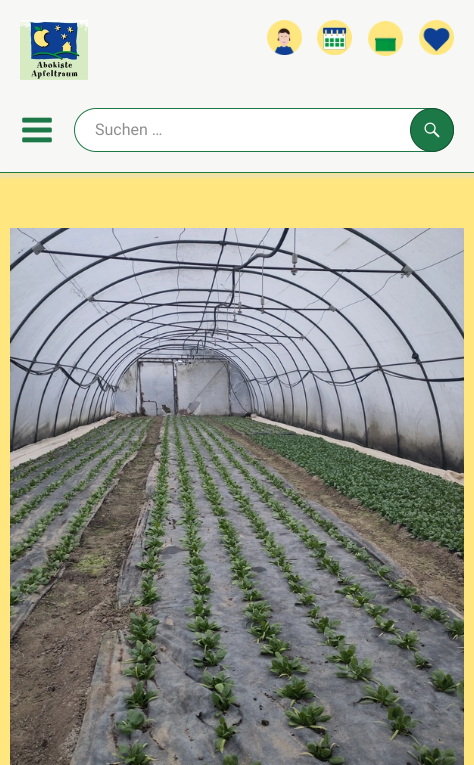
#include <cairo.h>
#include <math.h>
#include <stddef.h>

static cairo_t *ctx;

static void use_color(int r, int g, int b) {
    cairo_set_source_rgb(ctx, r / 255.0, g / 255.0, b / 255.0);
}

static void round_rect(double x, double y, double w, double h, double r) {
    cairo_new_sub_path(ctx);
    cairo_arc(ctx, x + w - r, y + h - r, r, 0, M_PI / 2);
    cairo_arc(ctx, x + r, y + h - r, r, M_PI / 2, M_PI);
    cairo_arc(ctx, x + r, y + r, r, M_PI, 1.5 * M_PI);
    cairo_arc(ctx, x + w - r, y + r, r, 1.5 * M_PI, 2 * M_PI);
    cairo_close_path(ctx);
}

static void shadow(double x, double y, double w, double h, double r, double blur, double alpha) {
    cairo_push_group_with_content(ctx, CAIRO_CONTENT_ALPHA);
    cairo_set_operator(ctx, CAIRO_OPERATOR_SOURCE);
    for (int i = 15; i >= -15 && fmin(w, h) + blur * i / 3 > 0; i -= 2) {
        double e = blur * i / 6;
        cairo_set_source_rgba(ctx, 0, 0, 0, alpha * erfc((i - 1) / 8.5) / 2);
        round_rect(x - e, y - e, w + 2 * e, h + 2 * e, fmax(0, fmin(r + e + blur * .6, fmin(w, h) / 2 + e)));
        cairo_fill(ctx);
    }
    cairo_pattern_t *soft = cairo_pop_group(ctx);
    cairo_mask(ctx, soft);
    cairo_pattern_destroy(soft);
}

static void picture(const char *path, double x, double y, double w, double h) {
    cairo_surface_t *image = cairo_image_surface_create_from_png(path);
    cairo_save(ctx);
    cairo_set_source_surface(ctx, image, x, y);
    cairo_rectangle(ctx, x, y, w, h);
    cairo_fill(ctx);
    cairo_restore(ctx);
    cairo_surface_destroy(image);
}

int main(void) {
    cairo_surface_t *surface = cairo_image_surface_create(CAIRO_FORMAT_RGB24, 474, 765);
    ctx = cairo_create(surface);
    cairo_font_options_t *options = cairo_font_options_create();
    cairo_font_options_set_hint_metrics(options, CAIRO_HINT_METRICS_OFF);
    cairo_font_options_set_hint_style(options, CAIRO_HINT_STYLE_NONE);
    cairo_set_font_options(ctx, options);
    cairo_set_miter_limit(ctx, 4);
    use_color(255, 230, 127);
    cairo_paint(ctx);
    use_color(221, 221, 221);
    shadow(0, 175, 474, 1, 0, 2.5, 1);
    use_color(247, 247, 245);
    cairo_rectangle(ctx, 0, 0, 474, 172);
    cairo_fill(ctx);
    picture("img1.png", 20, 20, 68, 60);
    picture("img2.png", 267, 20, 35, 35);
    picture("img3.png", 317, 20, 35, 35);
    picture("img4.png", 368, 21, 35, 35);
    picture("img5.png", 419, 20, 35, 35);
    picture("img6.png", 22, 117, 30, 26);
    use_color(255, 255, 255);
    round_rect(74.5, 108.5, 379, 43, 21.5);
    cairo_fill_preserve(ctx);
    use_color(28, 121, 71);
    cairo_set_line_width(ctx, 1);
    cairo_stroke(ctx);
    cairo_select_font_face(ctx, "Roboto", CAIRO_FONT_SLANT_NORMAL, CAIRO_FONT_WEIGHT_NORMAL);
    cairo_set_font_size(ctx, 16);
    use_color(142, 142, 142);
    cairo_move_to(ctx, 95, 135);
    cairo_show_text(ctx, "Suchen …");
    use_color(28, 121, 71);
    cairo_new_path(ctx);
    cairo_arc(ctx, 432, 130, 21.5, 0, 2 * M_PI);
    cairo_fill_preserve(ctx);
    use_color(18, 80, 47);
    cairo_stroke(ctx);
    picture("img7.png", 424, 122, 16, 16);
    use_color(28, 121, 71);
    cairo_rectangle(ctx, 0, 172, 474, 1);
    cairo_fill(ctx);
    picture("img8.png", 10, 228, 454, 537);
    cairo_surface_write_to_png(surface, "result.png");
    cairo_font_options_destroy(options);
    cairo_destroy(ctx);
    cairo_surface_destroy(surface);
    return 0;
}
